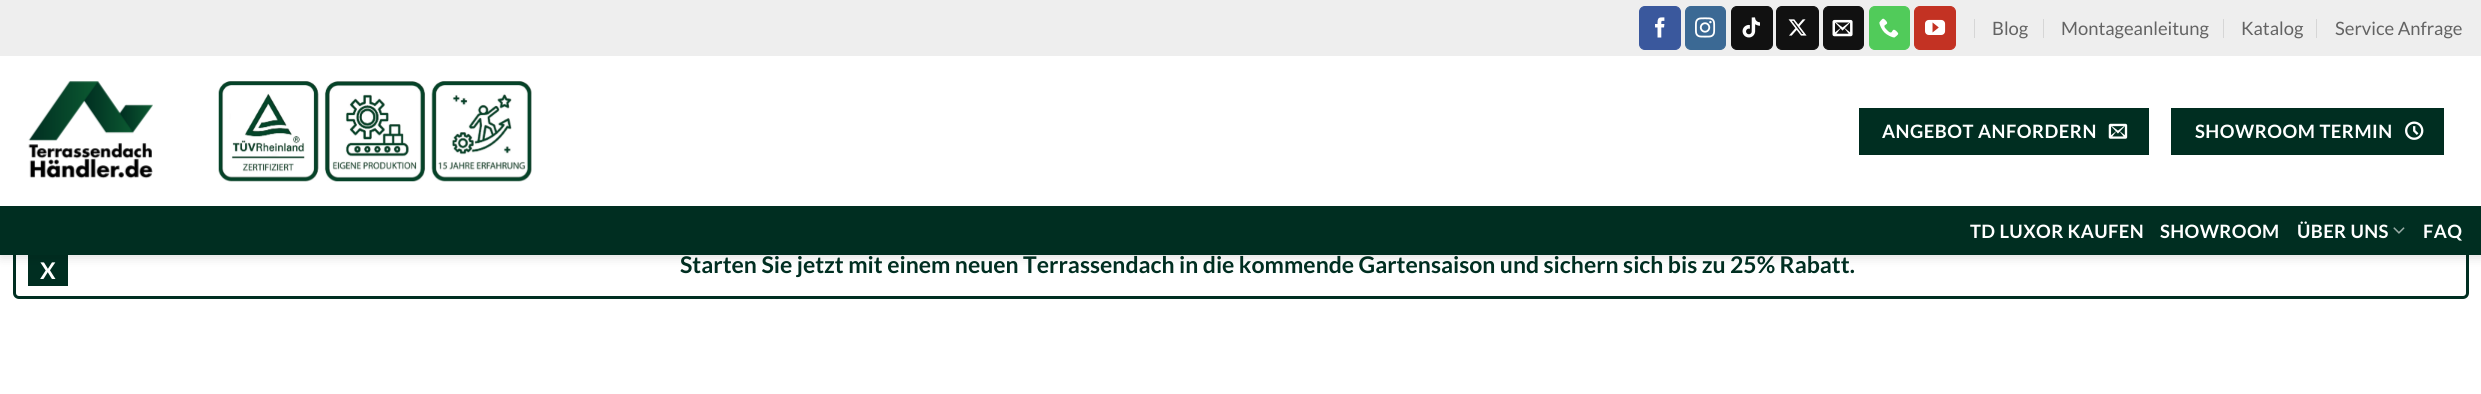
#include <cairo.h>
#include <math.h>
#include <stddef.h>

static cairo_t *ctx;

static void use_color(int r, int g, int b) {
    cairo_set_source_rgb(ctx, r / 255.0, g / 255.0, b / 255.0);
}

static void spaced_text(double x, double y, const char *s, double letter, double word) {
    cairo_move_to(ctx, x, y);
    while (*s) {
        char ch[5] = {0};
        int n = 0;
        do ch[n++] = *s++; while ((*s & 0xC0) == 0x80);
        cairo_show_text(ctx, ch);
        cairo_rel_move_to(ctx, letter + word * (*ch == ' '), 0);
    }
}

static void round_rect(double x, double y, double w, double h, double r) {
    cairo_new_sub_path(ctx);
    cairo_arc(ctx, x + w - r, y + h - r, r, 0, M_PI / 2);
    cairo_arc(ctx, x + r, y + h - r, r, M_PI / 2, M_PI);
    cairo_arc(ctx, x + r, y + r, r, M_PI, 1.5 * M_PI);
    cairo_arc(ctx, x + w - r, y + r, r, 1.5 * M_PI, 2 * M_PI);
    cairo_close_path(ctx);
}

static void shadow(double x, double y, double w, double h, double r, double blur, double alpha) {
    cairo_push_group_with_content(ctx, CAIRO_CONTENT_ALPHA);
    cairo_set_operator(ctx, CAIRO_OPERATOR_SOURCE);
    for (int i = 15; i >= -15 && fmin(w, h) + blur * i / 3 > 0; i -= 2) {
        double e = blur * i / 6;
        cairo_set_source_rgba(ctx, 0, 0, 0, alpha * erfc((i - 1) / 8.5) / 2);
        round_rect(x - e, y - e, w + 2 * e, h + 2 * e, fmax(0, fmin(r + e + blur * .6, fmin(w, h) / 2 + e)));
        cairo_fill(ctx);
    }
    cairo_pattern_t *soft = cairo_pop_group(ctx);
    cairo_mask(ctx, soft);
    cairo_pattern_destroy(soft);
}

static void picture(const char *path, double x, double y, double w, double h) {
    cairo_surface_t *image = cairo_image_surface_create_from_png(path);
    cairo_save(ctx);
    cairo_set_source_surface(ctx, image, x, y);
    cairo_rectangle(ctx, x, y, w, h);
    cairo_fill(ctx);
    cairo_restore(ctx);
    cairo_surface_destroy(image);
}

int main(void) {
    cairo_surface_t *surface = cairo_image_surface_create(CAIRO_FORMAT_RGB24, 2481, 394);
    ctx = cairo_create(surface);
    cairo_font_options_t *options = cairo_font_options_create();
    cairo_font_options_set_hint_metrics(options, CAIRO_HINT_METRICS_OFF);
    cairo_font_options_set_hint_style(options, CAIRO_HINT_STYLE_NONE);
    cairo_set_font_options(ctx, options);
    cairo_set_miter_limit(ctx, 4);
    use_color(255, 255, 255);
    cairo_paint(ctx);
    round_rect(14.5, 232.5, 2453, 65, 4.5);
    use_color(0, 46, 33);
    cairo_set_line_width(ctx, 3);
    cairo_stroke(ctx);
    cairo_rectangle(ctx, 28, 255, 40, 31);
    cairo_fill(ctx);
    use_color(0, 0, 0);
    shadow(1, 1, 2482, 255, 0, 6, 0.15);
    use_color(238, 238, 238);
    cairo_rectangle(ctx, 0, 0, 2481, 56);
    cairo_fill(ctx);
    use_color(58, 88, 157);
    round_rect(1639.5, 6.5, 41, 43, 5.5);
    cairo_fill_preserve(ctx);
    cairo_set_line_width(ctx, 1);
    cairo_stroke(ctx);
    picture("img1.png", 1655, 17, 10, 21);
    use_color(59, 105, 148);
    round_rect(1685.5, 6.5, 40, 43, 5.5);
    cairo_fill_preserve(ctx);
    cairo_stroke(ctx);
    picture("img2.png", 1695, 17, 21, 21);
    use_color(17, 17, 17);
    round_rect(1731.5, 6.5, 41, 43, 5.5);
    cairo_fill_preserve(ctx);
    cairo_stroke(ctx);
    picture("img3.png", 1742, 17, 18, 21);
    round_rect(1776.5, 6.5, 42, 43, 5.5);
    cairo_fill_preserve(ctx);
    cairo_stroke(ctx);
    picture("img4.png", 1788, 19, 19, 17);
    round_rect(1823.5, 6.5, 40, 43, 5.5);
    cairo_fill_preserve(ctx);
    cairo_stroke(ctx);
    picture("img5.png", 1832, 19, 21, 18);
    use_color(81, 203, 90);
    round_rect(1869.5, 6.5, 40, 43, 5.5);
    cairo_fill_preserve(ctx);
    cairo_stroke(ctx);
    picture("img6.png", 1879, 18, 20, 20);
    use_color(195, 50, 35);
    round_rect(1914.5, 6.5, 41, 43, 5.5);
    cairo_fill_preserve(ctx);
    cairo_stroke(ctx);
    picture("img7.png", 1925, 19, 21, 16);
    use_color(214, 214, 214);
    cairo_rectangle(ctx, 1974, 19, 1, 19);
    cairo_fill(ctx);
    cairo_select_font_face(ctx, "Lato", CAIRO_FONT_SLANT_NORMAL, CAIRO_FONT_WEIGHT_NORMAL);
    cairo_set_font_size(ctx, 18.4);
    use_color(99, 99, 99);
    cairo_move_to(ctx, 1992, 35);
    cairo_show_text(ctx, "Blog");
    use_color(214, 214, 214);
    cairo_rectangle(ctx, 2043, 19, 1, 19);
    cairo_fill(ctx);
    use_color(99, 99, 99);
    cairo_move_to(ctx, 2061, 35);
    cairo_show_text(ctx, "Montageanleitung");
    use_color(214, 214, 214);
    cairo_rectangle(ctx, 2223, 19, 1, 19);
    cairo_fill(ctx);
    use_color(99, 99, 99);
    cairo_move_to(ctx, 2241, 35);
    cairo_show_text(ctx, "Katalog");
    use_color(214, 214, 214);
    cairo_rectangle(ctx, 2316, 19, 1, 19);
    cairo_fill(ctx);
    use_color(99, 99, 99);
    cairo_move_to(ctx, 2335, 35);
    cairo_show_text(ctx, "Service Anfrage");
    use_color(255, 255, 255);
    cairo_rectangle(ctx, 0, 56, 2481, 150);
    cairo_fill(ctx);
    picture("img8.png", 28, 81, 125, 98);
    picture("img9.png", 218, 81, 314, 101);
    use_color(0, 46, 33);
    cairo_rectangle(ctx, 1859.5, 108.5, 289, 46);
    cairo_fill_preserve(ctx);
    use_color(0, 44, 31);
    cairo_stroke(ctx);
    cairo_select_font_face(ctx, "Lato", CAIRO_FONT_SLANT_NORMAL, CAIRO_FONT_WEIGHT_BOLD);
    use_color(255, 255, 255);
    spaced_text(1882, 138, "ANGEBOT ANFORDERN", 0.5, 0);
    picture("img10.png", 2108, 123, 20, 16);
    use_color(0, 46, 33);
    cairo_rectangle(ctx, 2171.5, 108.5, 272, 46);
    cairo_fill_preserve(ctx);
    use_color(0, 44, 31);
    cairo_stroke(ctx);
    use_color(255, 255, 255);
    spaced_text(2195, 138, "SHOWROOM TERMIN", 0.5, 0);
    picture("img11.png", 2405, 121, 19, 19);
    use_color(0, 46, 33);
    cairo_rectangle(ctx, 0, 206, 2481, 49);
    cairo_fill(ctx);
    use_color(255, 255, 255);
    spaced_text(1970, 238, "TD LUXOR KAUFEN", 0.4, 0);
    spaced_text(2160, 238, "SHOWROOM", 0.4, 0);
    spaced_text(2297, 238, "ÜBER UNS", 0.4, 0);
    picture("img12.png", 2393, 227, 12, 7);
    spaced_text(2423, 238, "FAQ", 0.4, 0);
    cairo_set_font_size(ctx, 23);
    cairo_move_to(ctx, 40, 279);
    cairo_show_text(ctx, "X");
    use_color(0, 46, 33);
    cairo_move_to(ctx, 680, 273);
    cairo_show_text(ctx, "Starten Sie jetzt mit einem neuen Terrassendach in die kommende Gartensaison und sichern sich bis zu 25% Rabatt.");
    cairo_surface_write_to_png(surface, "result.png");
    cairo_font_options_destroy(options);
    cairo_destroy(ctx);
    cairo_surface_destroy(surface);
    return 0;
}
